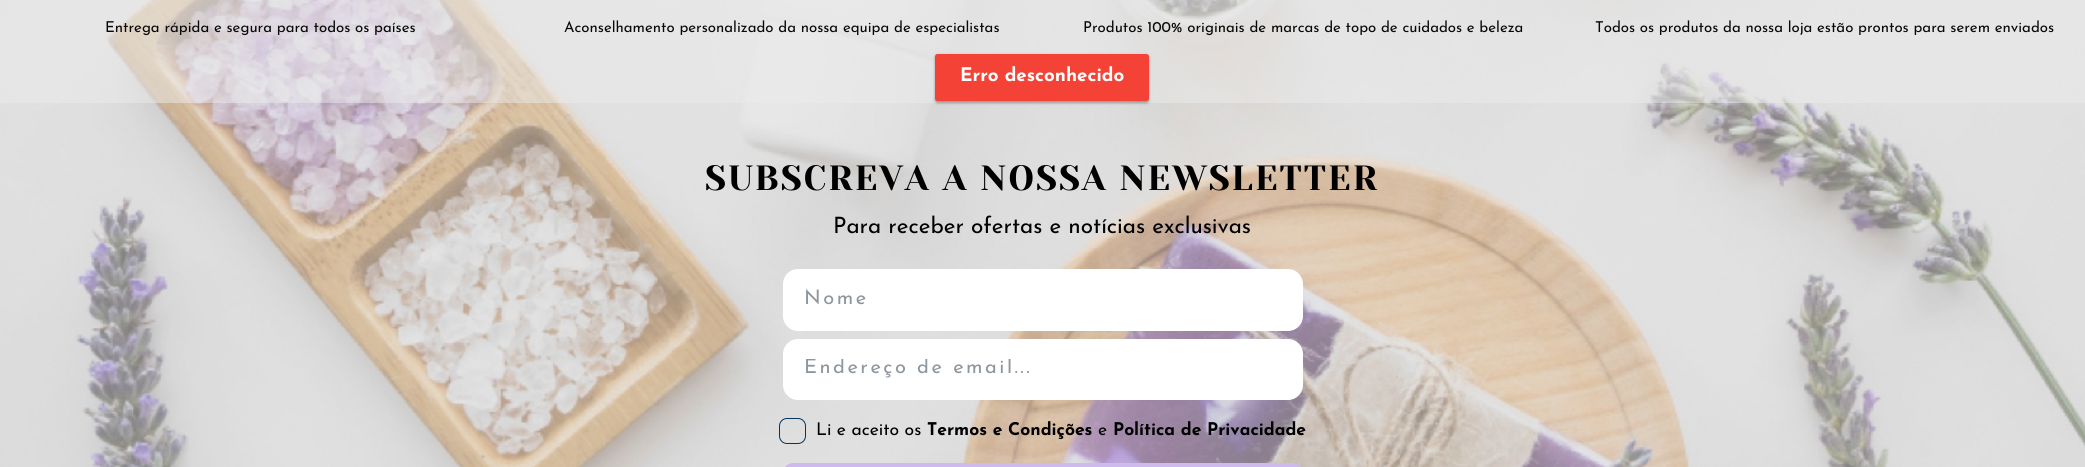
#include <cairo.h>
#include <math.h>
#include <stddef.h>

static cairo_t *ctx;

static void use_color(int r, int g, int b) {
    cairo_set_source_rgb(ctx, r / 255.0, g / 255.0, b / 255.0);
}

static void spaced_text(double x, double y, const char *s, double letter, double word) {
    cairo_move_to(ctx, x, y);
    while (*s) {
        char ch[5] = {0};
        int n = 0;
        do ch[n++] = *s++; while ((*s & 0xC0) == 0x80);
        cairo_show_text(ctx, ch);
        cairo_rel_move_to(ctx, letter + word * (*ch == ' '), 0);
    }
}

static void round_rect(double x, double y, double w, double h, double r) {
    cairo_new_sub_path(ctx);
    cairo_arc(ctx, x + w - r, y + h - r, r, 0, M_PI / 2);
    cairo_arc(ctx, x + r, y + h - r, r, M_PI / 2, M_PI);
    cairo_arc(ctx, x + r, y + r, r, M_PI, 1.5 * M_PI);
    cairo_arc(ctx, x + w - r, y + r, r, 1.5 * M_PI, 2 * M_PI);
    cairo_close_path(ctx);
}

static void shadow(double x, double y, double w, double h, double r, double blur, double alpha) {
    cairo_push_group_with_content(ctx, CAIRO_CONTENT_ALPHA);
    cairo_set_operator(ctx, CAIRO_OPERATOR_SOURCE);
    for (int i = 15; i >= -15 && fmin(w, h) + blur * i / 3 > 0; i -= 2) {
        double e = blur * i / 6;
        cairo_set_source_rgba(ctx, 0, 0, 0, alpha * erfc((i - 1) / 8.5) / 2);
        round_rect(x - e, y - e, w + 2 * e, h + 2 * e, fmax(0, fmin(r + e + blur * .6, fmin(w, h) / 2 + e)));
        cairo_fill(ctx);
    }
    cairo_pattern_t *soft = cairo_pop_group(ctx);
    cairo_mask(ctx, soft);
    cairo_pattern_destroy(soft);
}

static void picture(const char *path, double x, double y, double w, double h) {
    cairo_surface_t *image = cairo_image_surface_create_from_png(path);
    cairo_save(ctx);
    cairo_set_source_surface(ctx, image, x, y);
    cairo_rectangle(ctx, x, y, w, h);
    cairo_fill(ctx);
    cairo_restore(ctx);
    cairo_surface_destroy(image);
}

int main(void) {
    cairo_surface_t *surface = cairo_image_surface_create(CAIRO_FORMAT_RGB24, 2085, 467);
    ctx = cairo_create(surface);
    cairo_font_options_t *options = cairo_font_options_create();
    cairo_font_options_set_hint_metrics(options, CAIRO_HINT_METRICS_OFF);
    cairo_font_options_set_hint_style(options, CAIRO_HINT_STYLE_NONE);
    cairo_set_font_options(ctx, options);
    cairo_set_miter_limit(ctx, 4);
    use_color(255, 255, 255);
    cairo_paint(ctx);
    picture("img1.png", 0, 0, 2085, 467);
    cairo_set_source_rgba(ctx, 0.929, 0.929, 0.929, 0.5);
    cairo_rectangle(ctx, 0, 0, 521, 103);
    cairo_fill(ctx);
    cairo_select_font_face(ctx, "Josefin Sans", CAIRO_FONT_SLANT_NORMAL, CAIRO_FONT_WEIGHT_NORMAL);
    cairo_set_font_size(ctx, 15);
    use_color(8, 8, 8);
    cairo_move_to(ctx, 105, 32);
    cairo_show_text(ctx, "Entrega rápida e segura para todos os países");
    cairo_set_source_rgba(ctx, 0.929, 0.929, 0.929, 0.5);
    cairo_rectangle(ctx, 521, 0, 522, 103);
    cairo_fill(ctx);
    use_color(8, 8, 8);
    cairo_move_to(ctx, 564, 32);
    cairo_show_text(ctx, "Aconselhamento personalizado da nossa equipa de especialistas");
    cairo_set_source_rgba(ctx, 0.929, 0.929, 0.929, 0.5);
    cairo_rectangle(ctx, 1043, 0, 521, 103);
    cairo_fill(ctx);
    use_color(8, 8, 8);
    cairo_move_to(ctx, 1083, 32);
    cairo_show_text(ctx, "Produtos 100% originais de marcas de topo de cuidados e beleza");
    cairo_set_source_rgba(ctx, 0.929, 0.929, 0.929, 0.5);
    cairo_rectangle(ctx, 1564, 0, 521, 103);
    cairo_fill(ctx);
    use_color(8, 8, 8);
    cairo_move_to(ctx, 1595, 32);
    cairo_show_text(ctx, "Todos os produtos da nossa loja estão prontos para serem enviados");
    cairo_select_font_face(ctx, "Yeseva One", CAIRO_FONT_SLANT_NORMAL, CAIRO_FONT_WEIGHT_NORMAL);
    cairo_set_font_size(ctx, 35);
    use_color(0, 0, 0);
    spaced_text(705, 190, "SUBSCREVA A NOSSA NEWSLETTER", 2.05, 0);
    cairo_select_font_face(ctx, "Josefin Sans", CAIRO_FONT_SLANT_NORMAL, CAIRO_FONT_WEIGHT_NORMAL);
    cairo_set_font_size(ctx, 22.5);
    cairo_move_to(ctx, 833, 233);
    cairo_show_text(ctx, "Para receber ofertas e notícias exclusivas");
    use_color(255, 255, 255);
    round_rect(783, 269, 520, 62, 15);
    cairo_fill(ctx);
    cairo_set_font_size(ctx, 20);
    use_color(142, 150, 158);
    spaced_text(804, 304, "Nome", 2.5, 0);
    use_color(255, 255, 255);
    round_rect(783, 339, 520, 61, 15);
    cairo_fill(ctx);
    cairo_save(ctx);
    cairo_rectangle(ctx, 805, 359, 483, 20);
    cairo_clip(ctx);
    use_color(142, 150, 158);
    spaced_text(804, 373, "Endereço de email...", 2.5, 0);
    cairo_restore(ctx);
    round_rect(779.5, 418.5, 26, 25, 7.5);
    use_color(4, 53, 94);
    cairo_set_line_width(ctx, 1);
    cairo_stroke(ctx);
    cairo_set_font_size(ctx, 17.5);
    use_color(0, 0, 0);
    cairo_move_to(ctx, 816, 435);
    cairo_show_text(ctx, "Li e aceito os");
    cairo_select_font_face(ctx, "Josefin Sans", CAIRO_FONT_SLANT_NORMAL, CAIRO_FONT_WEIGHT_BOLD);
    cairo_move_to(ctx, 927, 435);
    cairo_show_text(ctx, "Termos e Condições");
    cairo_select_font_face(ctx, "Josefin Sans", CAIRO_FONT_SLANT_NORMAL, CAIRO_FONT_WEIGHT_NORMAL);
    cairo_move_to(ctx, 1098, 435);
    cairo_show_text(ctx, "e");
    cairo_select_font_face(ctx, "Josefin Sans", CAIRO_FONT_SLANT_NORMAL, CAIRO_FONT_WEIGHT_BOLD);
    cairo_move_to(ctx, 1113, 435);
    cairo_show_text(ctx, "Política de Privacidade");
    use_color(207, 186, 238);
    round_rect(783, 463, 520, 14, 10);
    cairo_fill(ctx);
    use_color(0, 0, 0);
    shadow(935, 55, 214, 48, 2.5, 1, 0.24);
    shadow(935, 55, 214, 48, 2.5, 2, 0.12);
    use_color(244, 67, 54);
    round_rect(935, 54, 214, 47, 2.5);
    cairo_fill(ctx);
    cairo_set_font_size(ctx, 18.75);
    use_color(255, 255, 255);
    cairo_move_to(ctx, 960, 81);
    cairo_show_text(ctx, "Erro desconhecido");
    cairo_surface_write_to_png(surface, "result.png");
    cairo_font_options_destroy(options);
    cairo_destroy(ctx);
    cairo_surface_destroy(surface);
    return 0;
}
